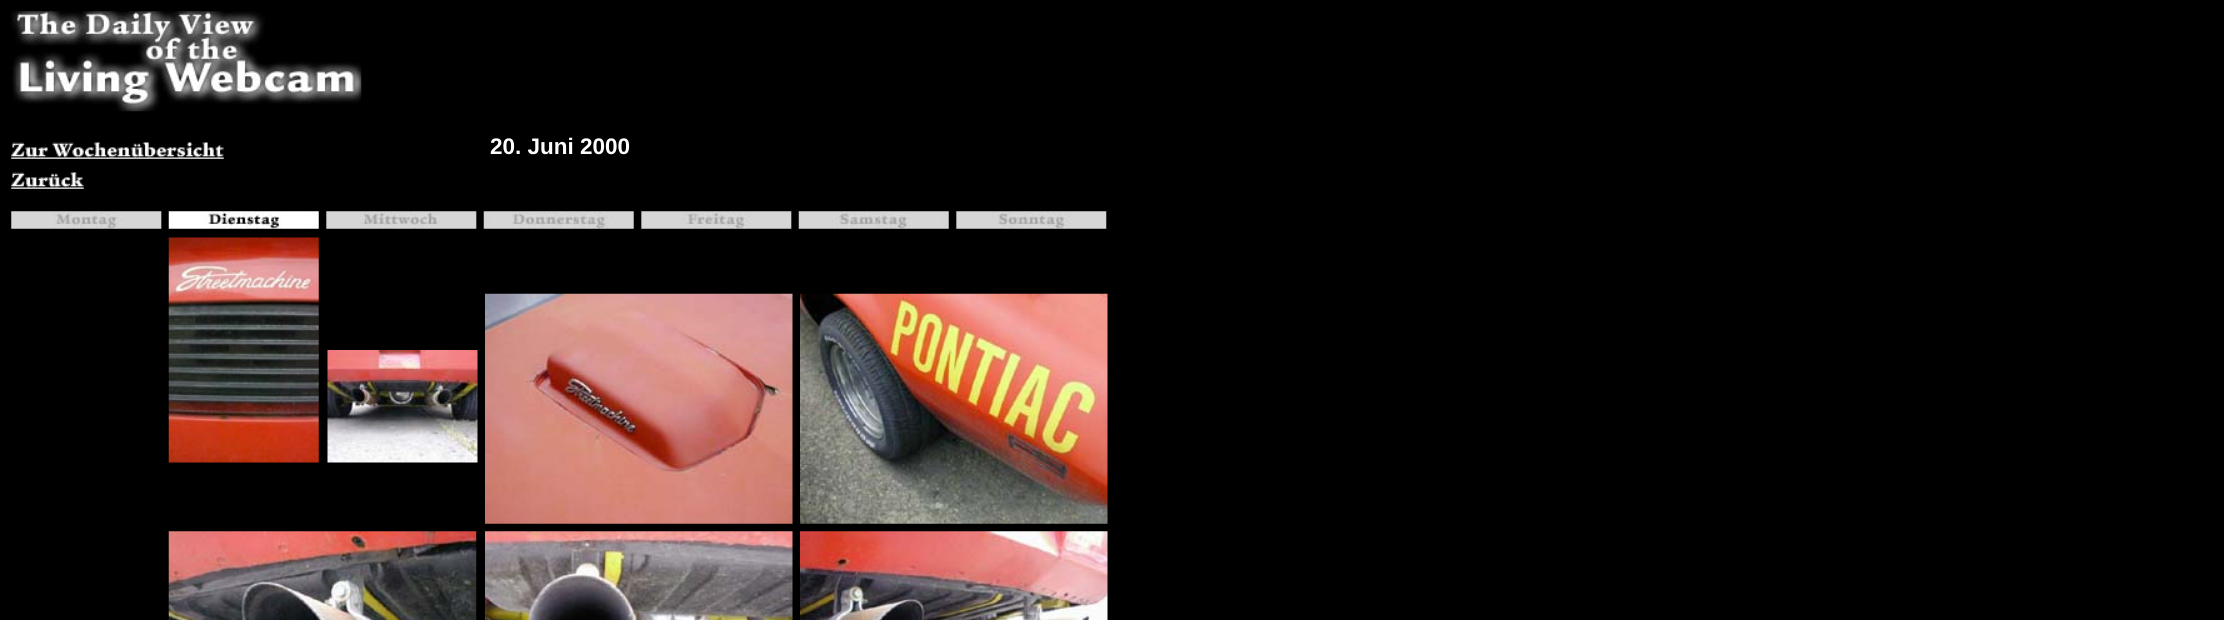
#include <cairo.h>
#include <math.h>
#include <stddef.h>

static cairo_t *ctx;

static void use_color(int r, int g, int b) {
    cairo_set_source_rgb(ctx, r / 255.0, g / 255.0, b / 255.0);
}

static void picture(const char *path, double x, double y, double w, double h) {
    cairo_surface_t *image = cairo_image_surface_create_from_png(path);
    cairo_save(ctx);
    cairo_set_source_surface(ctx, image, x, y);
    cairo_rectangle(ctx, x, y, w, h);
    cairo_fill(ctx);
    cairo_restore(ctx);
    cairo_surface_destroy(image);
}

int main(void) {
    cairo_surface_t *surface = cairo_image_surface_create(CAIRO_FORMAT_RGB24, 2224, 620);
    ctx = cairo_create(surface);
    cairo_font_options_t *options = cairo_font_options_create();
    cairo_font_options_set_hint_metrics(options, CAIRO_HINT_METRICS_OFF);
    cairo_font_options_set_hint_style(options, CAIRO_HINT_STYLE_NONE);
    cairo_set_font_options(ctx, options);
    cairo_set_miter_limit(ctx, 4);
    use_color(0, 0, 0);
    cairo_paint(ctx);
    picture("img1.png", 11, 11, 351, 101);
    picture("img2.png", 11, 142, 213, 17);
    cairo_select_font_face(ctx, "Liberation Sans", CAIRO_FONT_SLANT_NORMAL, CAIRO_FONT_WEIGHT_BOLD);
    cairo_set_font_size(ctx, 22.5);
    use_color(255, 255, 255);
    cairo_move_to(ctx, 490, 154);
    cairo_show_text(ctx, "20. Juni 2000");
    picture("img3.png", 11, 172, 73, 17);
    picture("img4.png", 11, 211, 1096, 18);
    picture("img5.png", 168, 237, 151, 226);
    picture("img6.png", 327, 350, 151, 113);
    picture("img7.png", 485, 293, 308, 231);
    picture("img8.png", 800, 293, 308, 231);
    picture("img9.png", 168, 531, 309, 89);
    picture("img10.png", 485, 531, 308, 89);
    picture("img11.png", 800, 531, 308, 89);
    cairo_surface_write_to_png(surface, "result.png");
    cairo_font_options_destroy(options);
    cairo_destroy(ctx);
    cairo_surface_destroy(surface);
    return 0;
}
